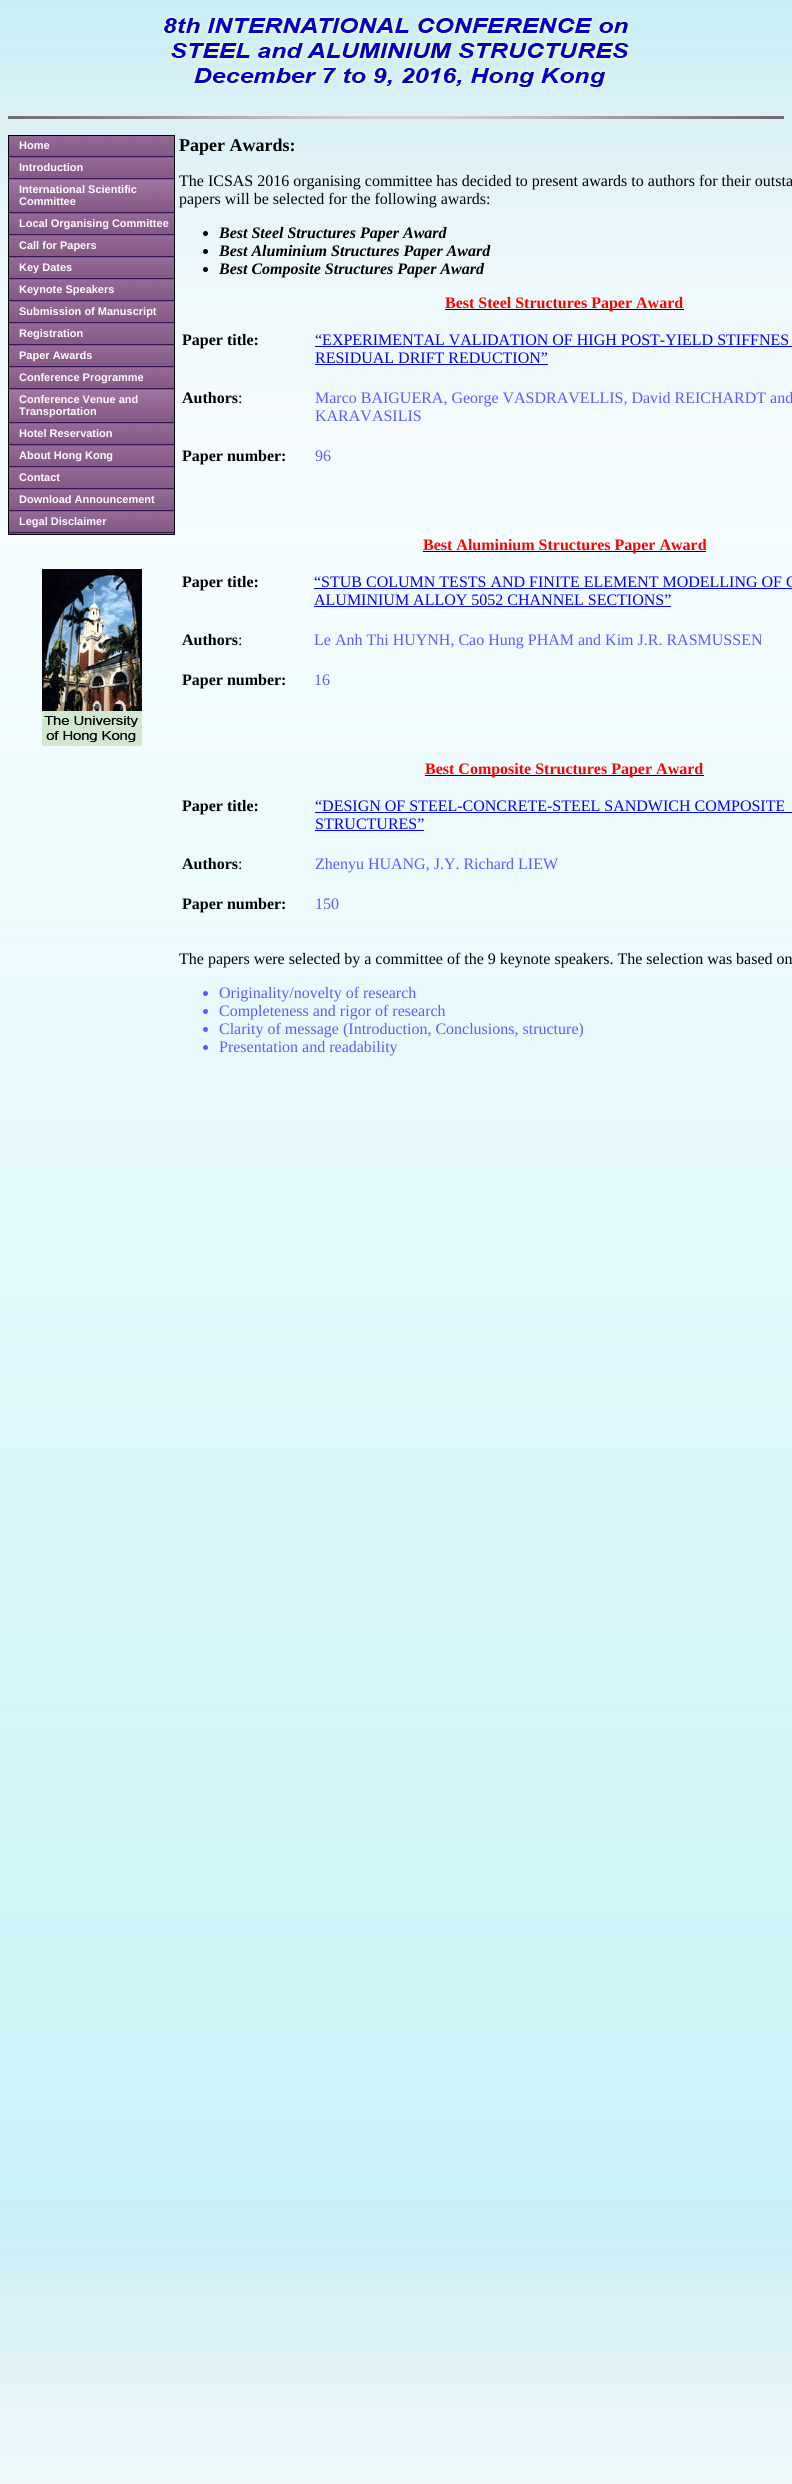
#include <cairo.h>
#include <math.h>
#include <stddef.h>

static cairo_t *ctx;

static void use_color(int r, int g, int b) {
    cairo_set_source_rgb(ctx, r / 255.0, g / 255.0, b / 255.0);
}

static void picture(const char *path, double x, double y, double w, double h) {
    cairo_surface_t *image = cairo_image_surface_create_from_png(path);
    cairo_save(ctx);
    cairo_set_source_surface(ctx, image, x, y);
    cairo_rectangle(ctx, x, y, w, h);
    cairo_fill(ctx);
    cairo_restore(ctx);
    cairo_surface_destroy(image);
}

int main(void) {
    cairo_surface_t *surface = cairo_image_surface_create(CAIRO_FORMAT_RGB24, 792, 2484);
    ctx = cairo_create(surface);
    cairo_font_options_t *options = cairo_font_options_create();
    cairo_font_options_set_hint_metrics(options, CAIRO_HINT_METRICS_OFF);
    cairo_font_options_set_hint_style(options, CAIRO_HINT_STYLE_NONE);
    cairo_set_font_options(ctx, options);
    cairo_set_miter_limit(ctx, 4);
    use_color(255, 255, 255);
    cairo_paint(ctx);
    picture("img1.png", 0, 0, 792, 2484);
    picture("img2.png", 161, 15, 470, 75);
    picture("img3.png", 8, 116, 776, 3);
    cairo_rectangle(ctx, 8.5, 135.5, 166, 399);
    use_color(0, 0, 0);
    cairo_set_line_width(ctx, 1);
    cairo_stroke(ctx);
    picture("img4.png", 9, 136, 165, 22);
    cairo_select_font_face(ctx, "Liberation Sans", CAIRO_FONT_SLANT_NORMAL, CAIRO_FONT_WEIGHT_BOLD);
    cairo_set_font_size(ctx, 11);
    use_color(255, 255, 255);
    cairo_move_to(ctx, 19, 149);
    cairo_show_text(ctx, "Home");
    picture("img4.png", 9, 158, 165, 22);
    cairo_move_to(ctx, 19, 171);
    cairo_show_text(ctx, "Introduction");
    picture("img5.png", 9, 180, 165, 34);
    cairo_move_to(ctx, 19, 193);
    cairo_show_text(ctx, "International Scientific");
    cairo_move_to(ctx, 19, 205);
    cairo_show_text(ctx, "Committee");
    picture("img4.png", 9, 214, 165, 22);
    cairo_move_to(ctx, 19, 227);
    cairo_show_text(ctx, "Local Organising Committee");
    picture("img4.png", 9, 236, 165, 22);
    cairo_move_to(ctx, 19, 249);
    cairo_show_text(ctx, "Call for Papers");
    picture("img4.png", 9, 258, 165, 22);
    cairo_move_to(ctx, 19, 271);
    cairo_show_text(ctx, "Key Dates");
    picture("img4.png", 9, 280, 165, 22);
    cairo_move_to(ctx, 19, 293);
    cairo_show_text(ctx, "Keynote Speakers");
    picture("img4.png", 9, 302, 165, 22);
    cairo_move_to(ctx, 19, 315);
    cairo_show_text(ctx, "Submission of Manuscript");
    picture("img4.png", 9, 324, 165, 22);
    cairo_move_to(ctx, 19, 337);
    cairo_show_text(ctx, "Registration");
    picture("img4.png", 9, 346, 165, 22);
    cairo_move_to(ctx, 19, 359);
    cairo_show_text(ctx, "Paper Awards");
    picture("img4.png", 9, 368, 165, 22);
    cairo_move_to(ctx, 19, 381);
    cairo_show_text(ctx, "Conference Programme");
    picture("img5.png", 9, 390, 165, 34);
    cairo_move_to(ctx, 19, 403);
    cairo_show_text(ctx, "Conference Venue and");
    cairo_move_to(ctx, 19, 415);
    cairo_show_text(ctx, "Transportation");
    picture("img4.png", 9, 424, 165, 22);
    cairo_move_to(ctx, 19, 437);
    cairo_show_text(ctx, "Hotel Reservation");
    picture("img4.png", 9, 446, 165, 22);
    cairo_move_to(ctx, 19, 459);
    cairo_show_text(ctx, "About Hong Kong");
    picture("img4.png", 9, 468, 165, 22);
    cairo_move_to(ctx, 19, 481);
    cairo_show_text(ctx, "Contact");
    picture("img4.png", 9, 490, 165, 22);
    cairo_move_to(ctx, 19, 503);
    cairo_show_text(ctx, "Download Announcement");
    picture("img4.png", 9, 512, 165, 22);
    cairo_move_to(ctx, 19, 525);
    cairo_show_text(ctx, "Legal Disclaimer");
    picture("img6.png", 42, 569, 100, 177);
    cairo_select_font_face(ctx, "Liberation Serif", CAIRO_FONT_SLANT_NORMAL, CAIRO_FONT_WEIGHT_BOLD);
    cairo_set_font_size(ctx, 18);
    use_color(0, 0, 0);
    cairo_move_to(ctx, 179, 151);
    cairo_show_text(ctx, "Paper Awards:");
    cairo_select_font_face(ctx, "Liberation Serif", CAIRO_FONT_SLANT_NORMAL, CAIRO_FONT_WEIGHT_NORMAL);
    cairo_set_font_size(ctx, 16);
    cairo_move_to(ctx, 179, 186);
    cairo_show_text(ctx, "The ICSAS 2016 organising committee has decided to present awards to authors for their outsta");
    cairo_move_to(ctx, 179, 204);
    cairo_show_text(ctx, "papers will be selected for the following awards:");
    cairo_new_path(ctx);
    cairo_arc(ctx, 205.5, 233.5, 2.5, 0, 2 * M_PI);
    cairo_fill(ctx);
    cairo_select_font_face(ctx, "Liberation Serif", CAIRO_FONT_SLANT_ITALIC, CAIRO_FONT_WEIGHT_BOLD);
    cairo_move_to(ctx, 219, 238);
    cairo_show_text(ctx, "Best Steel Structures Paper Award");
    cairo_new_path(ctx);
    cairo_arc(ctx, 205.5, 251.5, 2.5, 0, 2 * M_PI);
    cairo_fill(ctx);
    cairo_move_to(ctx, 219, 256);
    cairo_show_text(ctx, "Best Aluminium Structures Paper Award");
    cairo_new_path(ctx);
    cairo_arc(ctx, 205.5, 269.5, 2.5, 0, 2 * M_PI);
    cairo_fill(ctx);
    cairo_move_to(ctx, 219, 274);
    cairo_show_text(ctx, "Best Composite Structures Paper Award");
    cairo_rectangle(ctx, 445, 309, 239, 1);
    cairo_fill(ctx);
    cairo_select_font_face(ctx, "Liberation Serif", CAIRO_FONT_SLANT_NORMAL, CAIRO_FONT_WEIGHT_BOLD);
    use_color(255, 0, 0);
    cairo_move_to(ctx, 445, 308);
    cairo_show_text(ctx, "Best Steel Structures Paper Award");
    use_color(0, 0, 0);
    cairo_move_to(ctx, 182, 345);
    cairo_show_text(ctx, "Paper title:");
    cairo_select_font_face(ctx, "Liberation Serif", CAIRO_FONT_SLANT_NORMAL, CAIRO_FONT_WEIGHT_NORMAL);
    use_color(0, 0, 255);
    cairo_move_to(ctx, 315, 345);
    cairo_show_text(ctx, "“EXPERIMENTAL VALIDATION OF HIGH POST-YIELD STIFFNES");
    cairo_rectangle(ctx, 315, 346, 477, 1);
    cairo_fill(ctx);
    cairo_move_to(ctx, 315, 363);
    cairo_show_text(ctx, "RESIDUAL DRIFT REDUCTION”");
    cairo_rectangle(ctx, 315, 364, 233, 1);
    cairo_fill(ctx);
    cairo_select_font_face(ctx, "Liberation Serif", CAIRO_FONT_SLANT_NORMAL, CAIRO_FONT_WEIGHT_BOLD);
    use_color(0, 0, 0);
    cairo_move_to(ctx, 182, 403);
    cairo_show_text(ctx, "Authors");
    cairo_select_font_face(ctx, "Liberation Serif", CAIRO_FONT_SLANT_NORMAL, CAIRO_FONT_WEIGHT_NORMAL);
    cairo_move_to(ctx, 238, 403);
    cairo_show_text(ctx, ":");
    use_color(90, 90, 255);
    cairo_move_to(ctx, 315, 403);
    cairo_show_text(ctx, "Marco BAIGUERA, George VASDRAVELLIS, David REICHARDT and");
    cairo_move_to(ctx, 315, 421);
    cairo_show_text(ctx, "KARAVASILIS");
    cairo_select_font_face(ctx, "Liberation Serif", CAIRO_FONT_SLANT_NORMAL, CAIRO_FONT_WEIGHT_BOLD);
    use_color(0, 0, 0);
    cairo_move_to(ctx, 182, 461);
    cairo_show_text(ctx, "Paper number:");
    cairo_select_font_face(ctx, "Liberation Serif", CAIRO_FONT_SLANT_NORMAL, CAIRO_FONT_WEIGHT_NORMAL);
    use_color(90, 90, 255);
    cairo_move_to(ctx, 315, 461);
    cairo_show_text(ctx, "96");
    use_color(0, 0, 0);
    cairo_rectangle(ctx, 423, 551, 283, 1);
    cairo_fill(ctx);
    cairo_select_font_face(ctx, "Liberation Serif", CAIRO_FONT_SLANT_NORMAL, CAIRO_FONT_WEIGHT_BOLD);
    use_color(255, 0, 0);
    cairo_move_to(ctx, 423, 550);
    cairo_show_text(ctx, "Best Aluminium Structures Paper Award");
    use_color(0, 0, 0);
    cairo_move_to(ctx, 182, 587);
    cairo_show_text(ctx, "Paper title:");
    cairo_select_font_face(ctx, "Liberation Serif", CAIRO_FONT_SLANT_NORMAL, CAIRO_FONT_WEIGHT_NORMAL);
    use_color(0, 0, 255);
    cairo_move_to(ctx, 314, 587);
    cairo_show_text(ctx, "“STUB COLUMN TESTS AND FINITE ELEMENT MODELLING OF C");
    cairo_rectangle(ctx, 314, 588, 478, 1);
    cairo_fill(ctx);
    cairo_move_to(ctx, 314, 605);
    cairo_show_text(ctx, "ALUMINIUM ALLOY 5052 CHANNEL SECTIONS”");
    cairo_rectangle(ctx, 314, 606, 357, 1);
    cairo_fill(ctx);
    cairo_select_font_face(ctx, "Liberation Serif", CAIRO_FONT_SLANT_NORMAL, CAIRO_FONT_WEIGHT_BOLD);
    use_color(0, 0, 0);
    cairo_move_to(ctx, 182, 645);
    cairo_show_text(ctx, "Authors");
    cairo_select_font_face(ctx, "Liberation Serif", CAIRO_FONT_SLANT_NORMAL, CAIRO_FONT_WEIGHT_NORMAL);
    cairo_move_to(ctx, 238, 645);
    cairo_show_text(ctx, ":");
    use_color(90, 90, 255);
    cairo_move_to(ctx, 314, 645);
    cairo_show_text(ctx, "Le Anh Thi HUYNH, Cao Hung PHAM and Kim J.R. RASMUSSEN");
    cairo_select_font_face(ctx, "Liberation Serif", CAIRO_FONT_SLANT_NORMAL, CAIRO_FONT_WEIGHT_BOLD);
    use_color(0, 0, 0);
    cairo_move_to(ctx, 182, 685);
    cairo_show_text(ctx, "Paper number:");
    cairo_select_font_face(ctx, "Liberation Serif", CAIRO_FONT_SLANT_NORMAL, CAIRO_FONT_WEIGHT_NORMAL);
    use_color(90, 90, 255);
    cairo_move_to(ctx, 314, 685);
    cairo_show_text(ctx, "16");
    use_color(0, 0, 0);
    cairo_rectangle(ctx, 425, 775, 279, 1);
    cairo_fill(ctx);
    cairo_select_font_face(ctx, "Liberation Serif", CAIRO_FONT_SLANT_NORMAL, CAIRO_FONT_WEIGHT_BOLD);
    use_color(255, 0, 0);
    cairo_move_to(ctx, 425, 774);
    cairo_show_text(ctx, "Best Composite Structures Paper Award");
    use_color(0, 0, 0);
    cairo_move_to(ctx, 182, 811);
    cairo_show_text(ctx, "Paper title:");
    cairo_select_font_face(ctx, "Liberation Serif", CAIRO_FONT_SLANT_NORMAL, CAIRO_FONT_WEIGHT_NORMAL);
    use_color(0, 0, 255);
    cairo_move_to(ctx, 315, 811);
    cairo_show_text(ctx, "“DESIGN OF STEEL-CONCRETE-STEEL SANDWICH COMPOSITE");
    cairo_rectangle(ctx, 315, 812, 477, 1);
    cairo_fill(ctx);
    cairo_move_to(ctx, 315, 829);
    cairo_show_text(ctx, "STRUCTURES”");
    cairo_rectangle(ctx, 315, 830, 109, 1);
    cairo_fill(ctx);
    cairo_select_font_face(ctx, "Liberation Serif", CAIRO_FONT_SLANT_NORMAL, CAIRO_FONT_WEIGHT_BOLD);
    use_color(0, 0, 0);
    cairo_move_to(ctx, 182, 869);
    cairo_show_text(ctx, "Authors");
    cairo_select_font_face(ctx, "Liberation Serif", CAIRO_FONT_SLANT_NORMAL, CAIRO_FONT_WEIGHT_NORMAL);
    cairo_move_to(ctx, 238, 869);
    cairo_show_text(ctx, ":");
    use_color(90, 90, 255);
    cairo_move_to(ctx, 315, 869);
    cairo_show_text(ctx, "Zhenyu HUANG, J.Y. Richard LIEW");
    cairo_select_font_face(ctx, "Liberation Serif", CAIRO_FONT_SLANT_NORMAL, CAIRO_FONT_WEIGHT_BOLD);
    use_color(0, 0, 0);
    cairo_move_to(ctx, 182, 909);
    cairo_show_text(ctx, "Paper number:");
    cairo_select_font_face(ctx, "Liberation Serif", CAIRO_FONT_SLANT_NORMAL, CAIRO_FONT_WEIGHT_NORMAL);
    use_color(90, 90, 255);
    cairo_move_to(ctx, 315, 909);
    cairo_show_text(ctx, "150");
    use_color(0, 0, 0);
    cairo_move_to(ctx, 179, 964);
    cairo_show_text(ctx, "The papers were selected by a committee of the 9 keynote speakers. The selection was based on");
    use_color(90, 90, 255);
    cairo_new_path(ctx);
    cairo_arc(ctx, 205.5, 993.5, 2.5, 0, 2 * M_PI);
    cairo_fill(ctx);
    cairo_move_to(ctx, 219, 998);
    cairo_show_text(ctx, "Originality/novelty of research");
    cairo_new_path(ctx);
    cairo_arc(ctx, 205.5, 1011.5, 2.5, 0, 2 * M_PI);
    cairo_fill(ctx);
    cairo_move_to(ctx, 219, 1016);
    cairo_show_text(ctx, "Completeness and rigor of research");
    cairo_new_path(ctx);
    cairo_arc(ctx, 205.5, 1029.5, 2.5, 0, 2 * M_PI);
    cairo_fill(ctx);
    cairo_move_to(ctx, 219, 1034);
    cairo_show_text(ctx, "Clarity of message (Introduction, Conclusions, structure)");
    cairo_new_path(ctx);
    cairo_arc(ctx, 205.5, 1047.5, 2.5, 0, 2 * M_PI);
    cairo_fill(ctx);
    cairo_move_to(ctx, 219, 1052);
    cairo_show_text(ctx, "Presentation and readability");
    cairo_surface_write_to_png(surface, "result.png");
    cairo_font_options_destroy(options);
    cairo_destroy(ctx);
    cairo_surface_destroy(surface);
    return 0;
}
